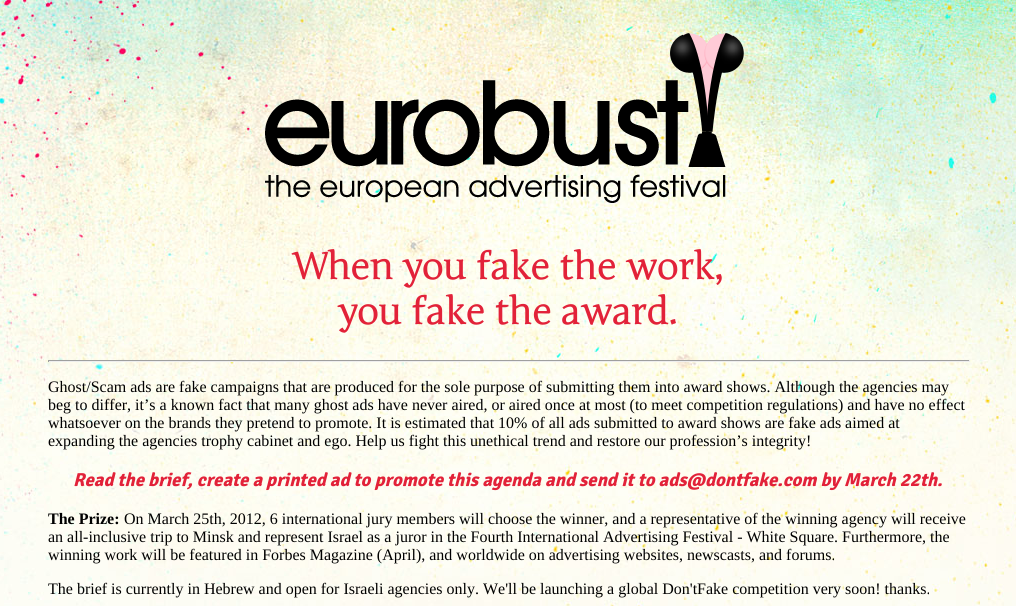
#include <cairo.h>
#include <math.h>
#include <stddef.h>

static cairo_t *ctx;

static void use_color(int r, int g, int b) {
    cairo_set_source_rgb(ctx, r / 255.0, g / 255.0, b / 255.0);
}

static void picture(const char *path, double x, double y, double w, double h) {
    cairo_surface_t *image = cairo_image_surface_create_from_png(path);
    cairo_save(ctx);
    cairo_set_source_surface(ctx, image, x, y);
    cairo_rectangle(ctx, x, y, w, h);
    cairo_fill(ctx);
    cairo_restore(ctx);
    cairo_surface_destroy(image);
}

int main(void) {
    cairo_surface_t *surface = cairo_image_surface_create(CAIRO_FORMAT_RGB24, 1016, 606);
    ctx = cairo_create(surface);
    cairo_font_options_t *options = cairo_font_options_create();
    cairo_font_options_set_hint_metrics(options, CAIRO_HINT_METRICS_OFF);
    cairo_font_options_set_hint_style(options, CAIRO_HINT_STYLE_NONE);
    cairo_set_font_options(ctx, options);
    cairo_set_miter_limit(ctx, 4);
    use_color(255, 255, 255);
    cairo_paint(ctx);
    picture("img1.png", 0, 0, 1016, 606);
    picture("img2.png", 265, 30, 479, 173);
    cairo_select_font_face(ctx, "Junge", CAIRO_FONT_SLANT_NORMAL, CAIRO_FONT_WEIGHT_BOLD);
    cairo_set_font_size(ctx, 37);
    use_color(226, 34, 57);
    cairo_move_to(ctx, 292, 279);
    cairo_show_text(ctx, "When you fake the work,");
    cairo_move_to(ctx, 338, 324);
    cairo_show_text(ctx, "you fake the award.");
    use_color(159, 159, 159);
    cairo_rectangle(ctx, 48, 360, 922, 1);
    cairo_fill(ctx);
    use_color(238, 238, 238);
    cairo_rectangle(ctx, 969, 360, 1, 2);
    cairo_fill(ctx);
    cairo_rectangle(ctx, 48, 361, 922, 1);
    cairo_fill(ctx);
    use_color(159, 159, 159);
    cairo_rectangle(ctx, 48, 360, 1, 2);
    cairo_fill(ctx);
    cairo_select_font_face(ctx, "Liberation Serif", CAIRO_FONT_SLANT_NORMAL, CAIRO_FONT_WEIGHT_NORMAL);
    cairo_set_font_size(ctx, 16);
    use_color(0, 0, 0);
    cairo_move_to(ctx, 48, 392);
    cairo_show_text(ctx, "Ghost/Scam ads are fake campaigns that are produced for the sole purpose of submitting them into award shows. Although the agencies may");
    cairo_move_to(ctx, 48, 410);
    cairo_show_text(ctx, "beg to differ, it’s a known fact that many ghost ads have never aired, or aired once at most (to meet competition regulations) and have no effect");
    cairo_move_to(ctx, 48, 428);
    cairo_show_text(ctx, "whatsoever on the brands they pretend to promote. It is estimated that 10% of all ads submitted to award shows are fake ads aimed at");
    cairo_move_to(ctx, 48, 446);
    cairo_show_text(ctx, "expanding the agencies trophy cabinet and ego. Help us fight this unethical trend and restore our profession’s integrity!");
    cairo_select_font_face(ctx, "Signika", CAIRO_FONT_SLANT_ITALIC, CAIRO_FONT_WEIGHT_BOLD);
    cairo_set_font_size(ctx, 18.7);
    use_color(226, 34, 57);
    cairo_move_to(ctx, 73, 486);
    cairo_show_text(ctx, "Read the brief, create a printed ad to promote this agenda and send it to ads@dontfake.com by March 22th.");
    cairo_select_font_face(ctx, "Liberation Serif", CAIRO_FONT_SLANT_NORMAL, CAIRO_FONT_WEIGHT_BOLD);
    cairo_set_font_size(ctx, 16);
    use_color(0, 0, 0);
    cairo_move_to(ctx, 48, 524);
    cairo_show_text(ctx, "The Prize:");
    cairo_select_font_face(ctx, "Liberation Serif", CAIRO_FONT_SLANT_NORMAL, CAIRO_FONT_WEIGHT_NORMAL);
    cairo_move_to(ctx, 124, 524);
    cairo_show_text(ctx, "On March 25th, 2012, 6 international jury members will choose the winner, and a representative of the winning agency will receive");
    cairo_move_to(ctx, 48, 542);
    cairo_show_text(ctx, "an all-inclusive trip to Minsk and represent Israel as a juror in the Fourth International Advertising Festival - White Square. Furthermore, the");
    cairo_move_to(ctx, 48, 560);
    cairo_show_text(ctx, "winning work will be featured in Forbes Magazine (April), and worldwide on advertising websites, newscasts, and forums.");
    cairo_move_to(ctx, 48, 594);
    cairo_show_text(ctx, "The brief is currently in Hebrew and open for Israeli agencies only. We'll be launching a global Don'tFake competition very soon! thanks.");
    cairo_surface_write_to_png(surface, "result.png");
    cairo_font_options_destroy(options);
    cairo_destroy(ctx);
    cairo_surface_destroy(surface);
    return 0;
}
